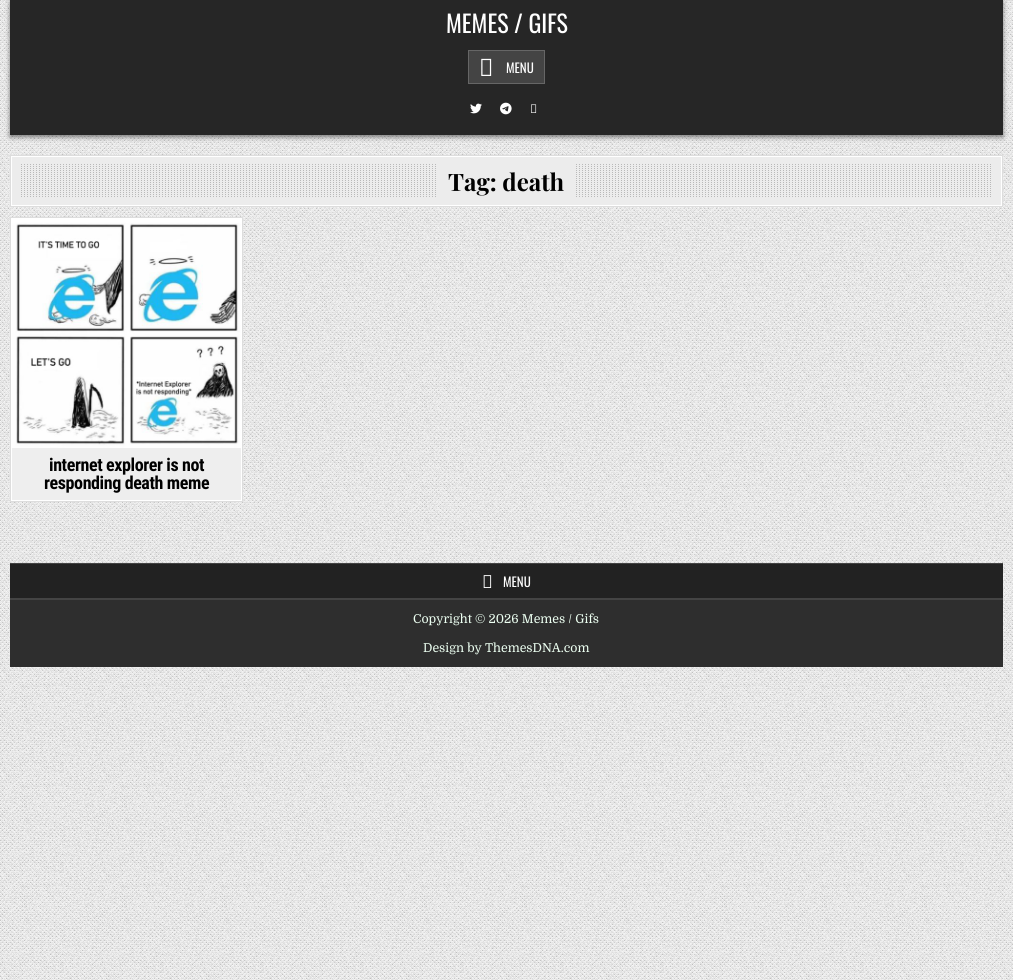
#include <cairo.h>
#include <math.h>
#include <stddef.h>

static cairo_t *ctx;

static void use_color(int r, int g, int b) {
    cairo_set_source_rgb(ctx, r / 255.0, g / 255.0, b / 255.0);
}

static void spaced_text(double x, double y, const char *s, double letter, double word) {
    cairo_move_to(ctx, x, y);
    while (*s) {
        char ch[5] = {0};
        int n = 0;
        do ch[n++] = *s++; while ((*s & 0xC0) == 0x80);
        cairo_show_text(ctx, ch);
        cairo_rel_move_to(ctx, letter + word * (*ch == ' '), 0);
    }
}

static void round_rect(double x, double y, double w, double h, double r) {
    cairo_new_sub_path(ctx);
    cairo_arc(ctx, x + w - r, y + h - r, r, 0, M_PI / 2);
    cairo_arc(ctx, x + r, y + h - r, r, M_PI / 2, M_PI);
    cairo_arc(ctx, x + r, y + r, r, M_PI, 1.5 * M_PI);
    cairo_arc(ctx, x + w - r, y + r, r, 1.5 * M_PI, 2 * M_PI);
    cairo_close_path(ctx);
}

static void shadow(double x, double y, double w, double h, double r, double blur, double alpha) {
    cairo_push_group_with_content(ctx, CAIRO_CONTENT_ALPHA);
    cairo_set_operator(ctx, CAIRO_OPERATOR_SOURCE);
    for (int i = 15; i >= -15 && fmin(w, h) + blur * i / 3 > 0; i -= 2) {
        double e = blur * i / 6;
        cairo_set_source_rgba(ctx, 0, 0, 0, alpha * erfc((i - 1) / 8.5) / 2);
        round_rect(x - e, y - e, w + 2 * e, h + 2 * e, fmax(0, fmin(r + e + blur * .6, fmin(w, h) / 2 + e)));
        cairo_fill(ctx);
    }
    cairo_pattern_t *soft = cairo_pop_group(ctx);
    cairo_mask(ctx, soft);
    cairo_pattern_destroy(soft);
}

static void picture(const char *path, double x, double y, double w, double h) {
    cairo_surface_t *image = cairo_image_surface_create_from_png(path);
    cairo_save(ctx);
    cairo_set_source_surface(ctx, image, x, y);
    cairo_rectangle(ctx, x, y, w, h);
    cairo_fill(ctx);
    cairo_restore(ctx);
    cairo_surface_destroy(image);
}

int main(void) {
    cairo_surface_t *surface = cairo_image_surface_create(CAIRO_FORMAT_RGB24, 1013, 980);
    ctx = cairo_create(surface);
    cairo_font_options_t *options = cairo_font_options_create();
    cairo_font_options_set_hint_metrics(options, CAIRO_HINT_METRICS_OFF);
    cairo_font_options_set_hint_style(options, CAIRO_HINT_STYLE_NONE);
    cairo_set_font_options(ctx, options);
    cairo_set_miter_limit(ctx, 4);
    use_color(255, 255, 255);
    cairo_paint(ctx);
    picture("img1.png", 0, 0, 1013, 980);
    use_color(0, 0, 0);
    shadow(10, 2, 993, 135, 0, 2.5, 0.5);
    use_color(38, 38, 38);
    cairo_rectangle(ctx, 10, 0, 993, 135);
    cairo_fill(ctx);
    cairo_select_font_face(ctx, "Oswald", CAIRO_FONT_SLANT_NORMAL, CAIRO_FONT_WEIGHT_NORMAL);
    cairo_set_font_size(ctx, 24);
    use_color(255, 255, 255);
    cairo_move_to(ctx, 446, 33);
    cairo_show_text(ctx, "MEMES / GIFS");
    use_color(68, 68, 68);
    cairo_rectangle(ctx, 468.5, 50.5, 76, 33);
    cairo_fill_preserve(ctx);
    use_color(102, 102, 102);
    cairo_set_line_width(ctx, 1);
    cairo_stroke(ctx);
    picture("img2.png", 481, 58, 11, 18);
    cairo_set_font_size(ctx, 13);
    use_color(255, 255, 255);
    cairo_move_to(ctx, 506, 73);
    cairo_show_text(ctx, "MENU");
    picture("img3.png", 470, 103, 12, 11);
    picture("img4.png", 500, 102, 12, 13);
    picture("img5.png", 531, 104, 6, 9);
    use_color(236, 236, 236);
    cairo_rectangle(ctx, 12, 157, 989, 48);
    cairo_fill(ctx);
    cairo_save(ctx);
    cairo_rectangle(ctx, 11, 156, 991, 50);
    cairo_clip(ctx);
    use_color(255, 255, 255);
    cairo_set_fill_rule(ctx, CAIRO_FILL_RULE_EVEN_ODD);
    cairo_new_path(ctx);
    cairo_move_to(ctx, -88, 57);
    cairo_line_to(ctx, 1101, 57);
    cairo_line_to(ctx, 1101, 305);
    cairo_line_to(ctx, -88, 305);
    cairo_close_path(ctx);
    cairo_move_to(ctx, 10, 155);
    cairo_line_to(ctx, 1001, 155);
    cairo_line_to(ctx, 1001, 205);
    cairo_line_to(ctx, 10, 205);
    cairo_close_path(ctx);
    cairo_fill(ctx);
    cairo_new_path(ctx);
    cairo_move_to(ctx, -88, 57);
    cairo_line_to(ctx, 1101, 57);
    cairo_line_to(ctx, 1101, 305);
    cairo_line_to(ctx, -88, 305);
    cairo_close_path(ctx);
    cairo_move_to(ctx, 12, 157);
    cairo_line_to(ctx, 1003, 157);
    cairo_line_to(ctx, 1003, 207);
    cairo_line_to(ctx, 12, 207);
    cairo_close_path(ctx);
    cairo_fill(ctx);
    cairo_restore(ctx);
    cairo_rectangle(ctx, 10.5, 155.5, 992, 51);
    use_color(221, 221, 221);
    cairo_stroke(ctx);
    picture("img6.png", 21, 164, 970, 33);
    use_color(236, 236, 236);
    cairo_rectangle(ctx, 438, 164, 136, 33);
    cairo_fill(ctx);
    cairo_select_font_face(ctx, "Playfair Display", CAIRO_FONT_SLANT_NORMAL, CAIRO_FONT_WEIGHT_BOLD);
    cairo_set_font_size(ctx, 24);
    use_color(0, 0, 0);
    cairo_move_to(ctx, 448, 191);
    cairo_show_text(ctx, "Tag: death");
    use_color(255, 255, 255);
    cairo_rectangle(ctx, 10.5, 217.5, 232, 284);
    cairo_fill_preserve(ctx);
    use_color(221, 221, 221);
    cairo_stroke(ctx);
    picture("img7.png", 12, 219, 229, 229);
    use_color(238, 238, 238);
    cairo_rectangle(ctx, 12, 448, 229, 52);
    cairo_fill(ctx);
    cairo_select_font_face(ctx, "Roboto Condensed", CAIRO_FONT_SLANT_NORMAL, CAIRO_FONT_WEIGHT_BOLD);
    cairo_set_font_size(ctx, 18);
    use_color(0, 0, 0);
    spaced_text(49, 471, "internet explorer is not", -0.4, 0);
    spaced_text(44, 489, "responding death meme", -0.4, 0);
    use_color(34, 34, 34);
    cairo_rectangle(ctx, 10, 564, 993, 34);
    cairo_fill(ctx);
    use_color(68, 68, 68);
    cairo_rectangle(ctx, 10, 563, 993, 1);
    cairo_fill(ctx);
    cairo_rectangle(ctx, 10, 598, 993, 2);
    cairo_fill(ctx);
    picture("img8.png", 483, 575, 9, 13);
    cairo_select_font_face(ctx, "Oswald", CAIRO_FONT_SLANT_NORMAL, CAIRO_FONT_WEIGHT_NORMAL);
    cairo_set_font_size(ctx, 13);
    use_color(255, 255, 255);
    cairo_move_to(ctx, 503, 587);
    cairo_show_text(ctx, "MENU");
    use_color(46, 46, 46);
    cairo_rectangle(ctx, 10, 600, 993, 67);
    cairo_fill(ctx);
    cairo_select_font_face(ctx, "Domine", CAIRO_FONT_SLANT_NORMAL, CAIRO_FONT_WEIGHT_NORMAL);
    cairo_set_font_size(ctx, 12.3);
    use_color(236, 255, 241);
    cairo_move_to(ctx, 413, 623);
    cairo_show_text(ctx, "Copyright © 2026 Memes / Gifs");
    cairo_move_to(ctx, 423, 652);
    cairo_show_text(ctx, "Design by ThemesDNA.com");
    cairo_surface_write_to_png(surface, "result.png");
    cairo_font_options_destroy(options);
    cairo_destroy(ctx);
    cairo_surface_destroy(surface);
    return 0;
}
